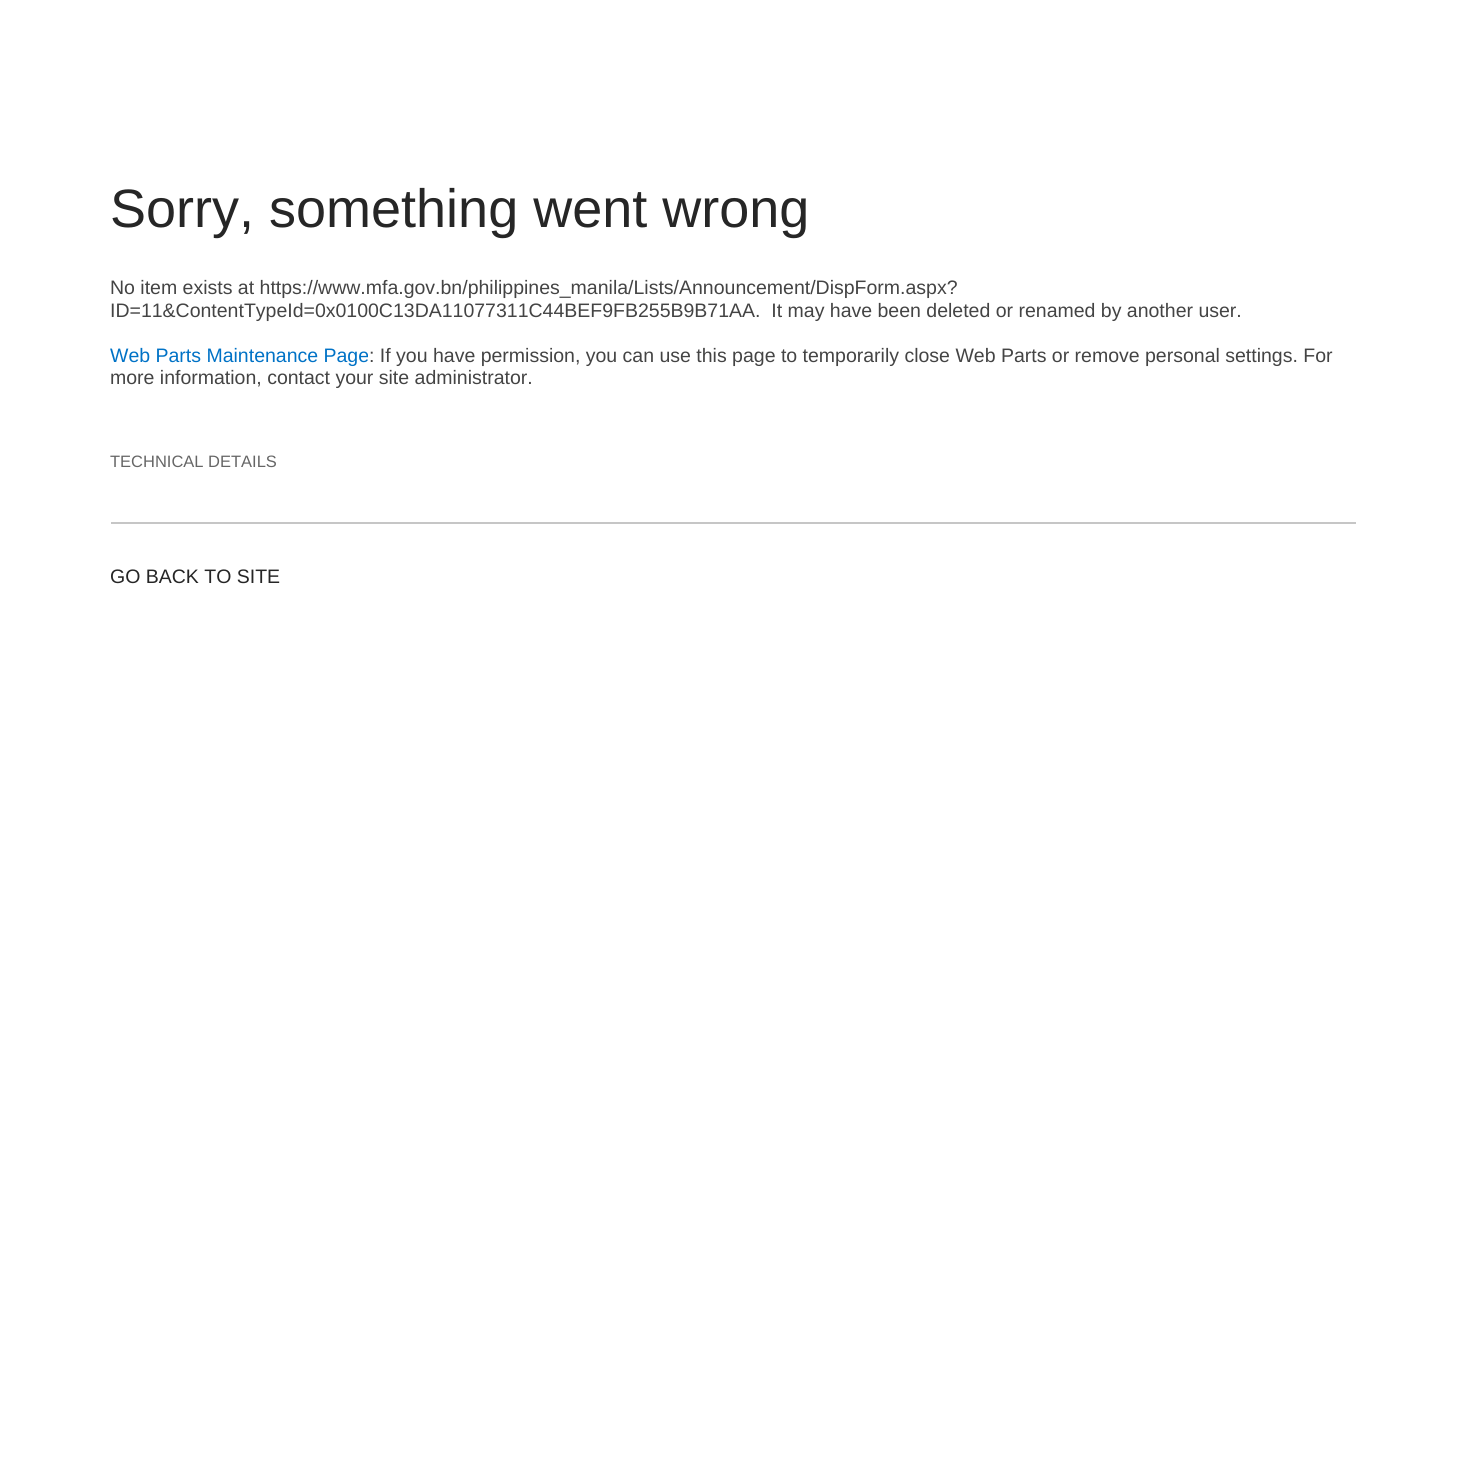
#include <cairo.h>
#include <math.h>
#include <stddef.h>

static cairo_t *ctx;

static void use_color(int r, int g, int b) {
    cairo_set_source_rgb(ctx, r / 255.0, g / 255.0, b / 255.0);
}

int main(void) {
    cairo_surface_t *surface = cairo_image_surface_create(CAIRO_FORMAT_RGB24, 1465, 1471);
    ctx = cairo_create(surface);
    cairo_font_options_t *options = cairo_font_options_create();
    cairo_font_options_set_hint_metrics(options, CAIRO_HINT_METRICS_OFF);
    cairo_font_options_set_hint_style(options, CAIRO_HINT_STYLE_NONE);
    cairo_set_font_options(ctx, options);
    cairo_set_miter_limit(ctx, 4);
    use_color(255, 255, 255);
    cairo_paint(ctx);
    cairo_select_font_face(ctx, "Liberation Sans", CAIRO_FONT_SLANT_NORMAL, CAIRO_FONT_WEIGHT_NORMAL);
    cairo_set_font_size(ctx, 54);
    use_color(38, 38, 38);
    cairo_move_to(ctx, 110, 227);
    cairo_show_text(ctx, "Sorry, something went wrong");
    cairo_set_font_size(ctx, 19.5);
    use_color(68, 68, 68);
    cairo_move_to(ctx, 110, 294);
    cairo_show_text(ctx, "No item exists at https://www.mfa.gov.bn/philippines_manila/Lists/Announcement/DispForm.aspx?");
    cairo_move_to(ctx, 110, 317);
    cairo_show_text(ctx, "ID=11&ContentTypeId=0x0100C13DA11077311C44BEF9FB255B9B71AA.  It may have been deleted or renamed by another user.");
    use_color(0, 114, 198);
    cairo_move_to(ctx, 110, 362);
    cairo_show_text(ctx, "Web Parts Maintenance Page");
    use_color(68, 68, 68);
    cairo_move_to(ctx, 369, 362);
    cairo_show_text(ctx, ": If you have permission, you can use this page to temporarily close Web Parts or remove personal settings. For");
    cairo_move_to(ctx, 110, 384);
    cairo_show_text(ctx, "more information, contact your site administrator.");
    cairo_set_font_size(ctx, 16.5);
    use_color(102, 102, 102);
    cairo_move_to(ctx, 110, 467);
    cairo_show_text(ctx, "TECHNICAL DETAILS");
    use_color(198, 198, 198);
    cairo_rectangle(ctx, 111, 522, 1245, 2);
    cairo_fill(ctx);
    cairo_set_font_size(ctx, 19.5);
    use_color(38, 38, 38);
    cairo_move_to(ctx, 110, 583);
    cairo_show_text(ctx, "GO BACK TO SITE");
    cairo_surface_write_to_png(surface, "result.png");
    cairo_font_options_destroy(options);
    cairo_destroy(ctx);
    cairo_surface_destroy(surface);
    return 0;
}
